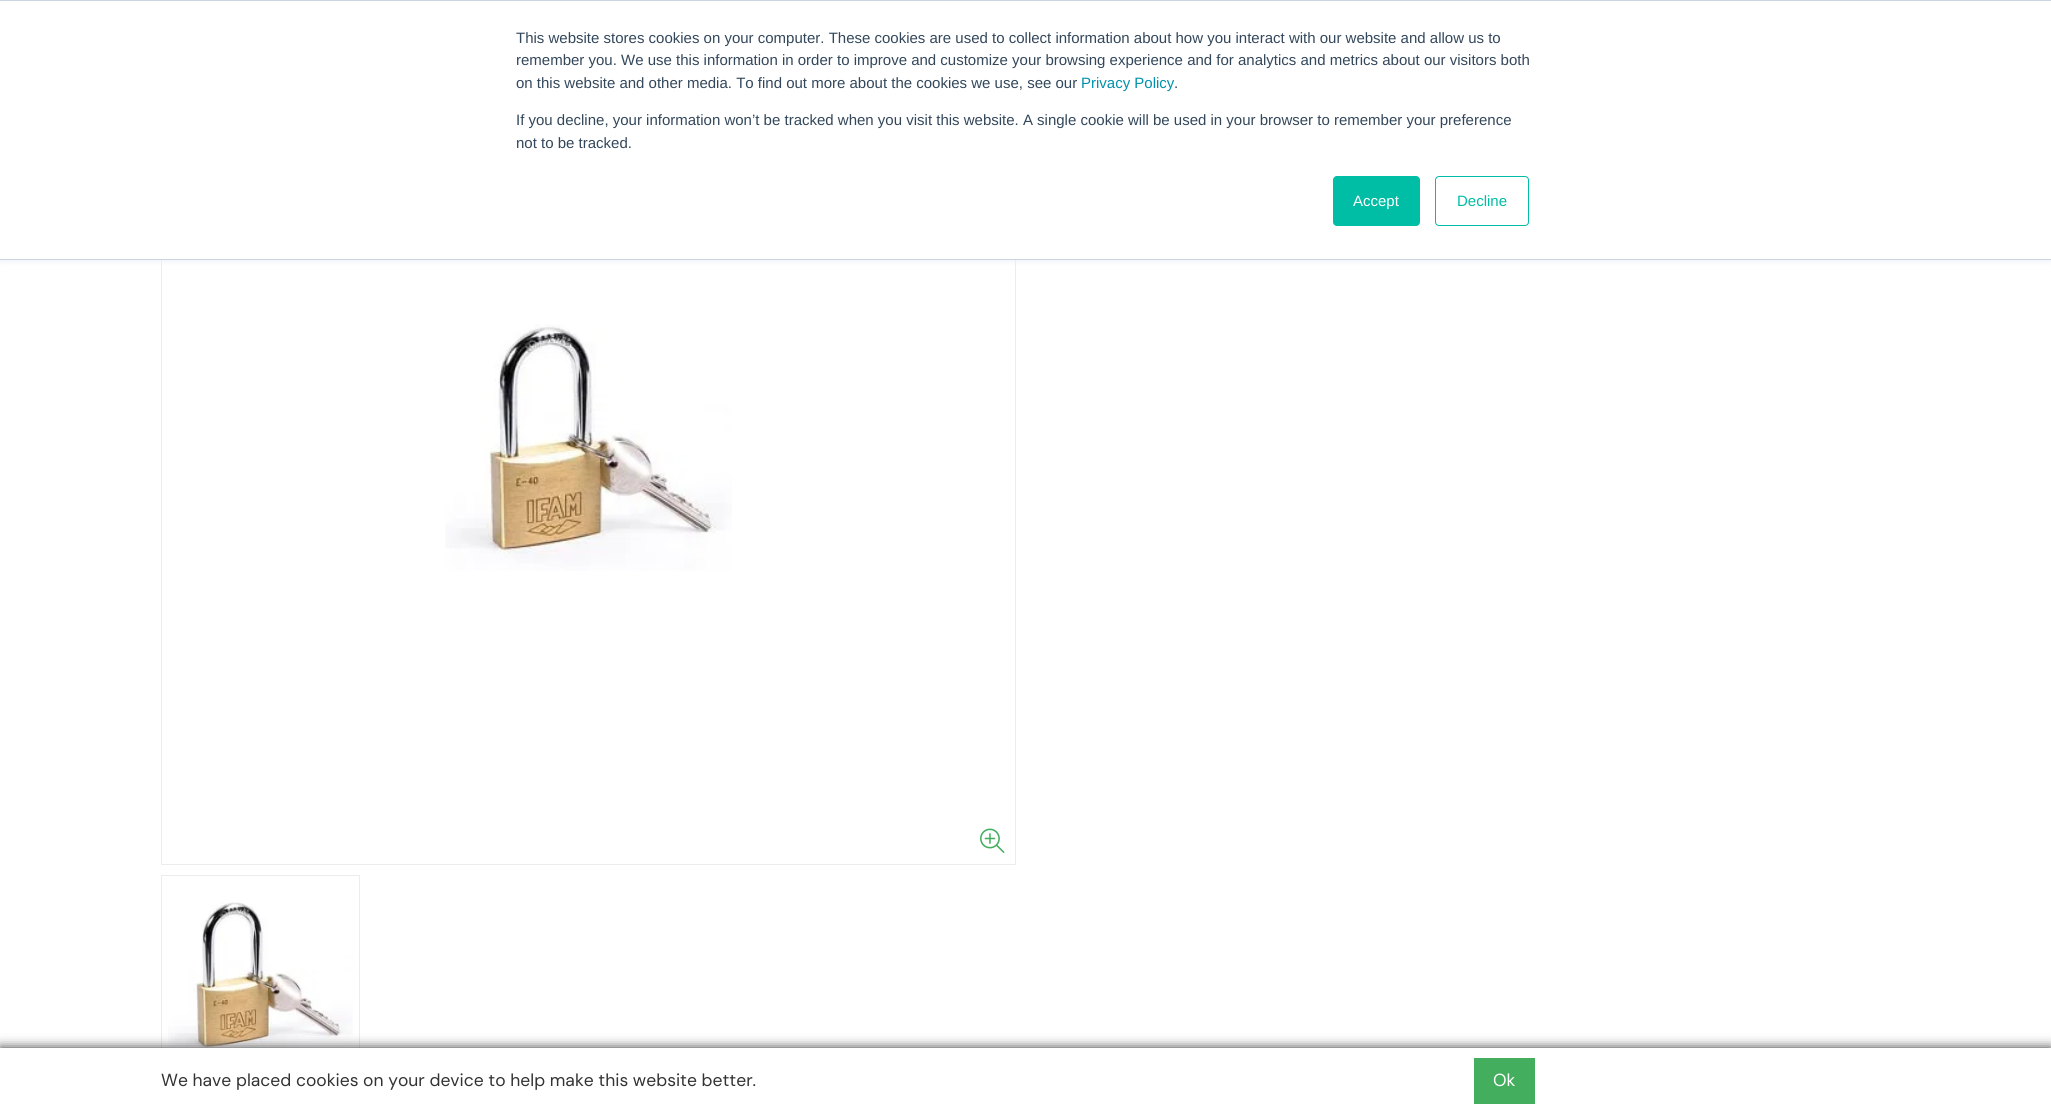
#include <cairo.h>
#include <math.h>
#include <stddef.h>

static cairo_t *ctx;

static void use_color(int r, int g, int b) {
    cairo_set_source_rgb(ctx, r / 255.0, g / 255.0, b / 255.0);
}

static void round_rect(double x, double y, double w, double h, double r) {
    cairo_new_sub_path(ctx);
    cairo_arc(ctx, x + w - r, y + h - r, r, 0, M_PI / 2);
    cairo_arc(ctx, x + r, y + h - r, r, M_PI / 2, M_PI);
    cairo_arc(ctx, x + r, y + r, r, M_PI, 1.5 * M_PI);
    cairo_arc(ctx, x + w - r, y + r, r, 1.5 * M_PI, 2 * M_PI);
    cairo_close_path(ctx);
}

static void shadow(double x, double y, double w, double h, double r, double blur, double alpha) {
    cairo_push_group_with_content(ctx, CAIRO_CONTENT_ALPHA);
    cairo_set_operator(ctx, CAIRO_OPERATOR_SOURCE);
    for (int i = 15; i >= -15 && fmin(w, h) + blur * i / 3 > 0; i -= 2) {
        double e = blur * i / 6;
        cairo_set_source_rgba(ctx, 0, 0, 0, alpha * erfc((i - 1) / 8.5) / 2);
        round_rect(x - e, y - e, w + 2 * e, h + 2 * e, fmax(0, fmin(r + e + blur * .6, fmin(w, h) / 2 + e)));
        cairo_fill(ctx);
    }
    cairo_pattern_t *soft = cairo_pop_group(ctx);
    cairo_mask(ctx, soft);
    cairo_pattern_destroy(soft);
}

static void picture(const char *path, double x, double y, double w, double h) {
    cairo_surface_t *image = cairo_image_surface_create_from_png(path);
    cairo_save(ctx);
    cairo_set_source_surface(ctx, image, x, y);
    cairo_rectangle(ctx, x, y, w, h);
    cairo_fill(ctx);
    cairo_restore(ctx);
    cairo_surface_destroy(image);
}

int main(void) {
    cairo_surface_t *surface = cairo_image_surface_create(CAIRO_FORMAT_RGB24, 2051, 1113);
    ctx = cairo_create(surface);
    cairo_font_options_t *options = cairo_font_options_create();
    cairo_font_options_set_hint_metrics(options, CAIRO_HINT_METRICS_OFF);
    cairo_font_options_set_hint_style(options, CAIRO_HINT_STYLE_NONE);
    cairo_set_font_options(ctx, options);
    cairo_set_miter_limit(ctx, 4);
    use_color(255, 255, 255);
    cairo_paint(ctx);
    cairo_rectangle(ctx, 161.5, 10.5, 854, 854);
    use_color(236, 236, 236);
    cairo_set_line_width(ctx, 1);
    cairo_stroke(ctx);
    use_color(234, 240, 246);
    shadow(0, 1, 2051, 260, 0, 3, 1);
    use_color(255, 255, 255);
    cairo_rectangle(ctx, 0, 1, 2051, 258);
    cairo_fill(ctx);
    use_color(203, 214, 226);
    cairo_rectangle(ctx, 0, 0, 2051, 1);
    cairo_fill(ctx);
    cairo_rectangle(ctx, 0, 259, 2051, 1);
    cairo_fill(ctx);
    cairo_select_font_face(ctx, "Liberation Sans", CAIRO_FONT_SLANT_NORMAL, CAIRO_FONT_WEIGHT_NORMAL);
    cairo_set_font_size(ctx, 15);
    use_color(51, 71, 91);
    cairo_move_to(ctx, 516, 43);
    cairo_show_text(ctx, "This website stores cookies on your computer. These cookies are used to collect information about how you interact with our website and allow us to");
    cairo_move_to(ctx, 516, 65);
    cairo_show_text(ctx, "remember you. We use this information in order to improve and customize your browsing experience and for analytics and metrics about our visitors both");
    cairo_move_to(ctx, 516, 88);
    cairo_show_text(ctx, "on this website and other media. To find out more about the cookies we use, see our");
    use_color(0, 145, 174);
    cairo_move_to(ctx, 1081, 88);
    cairo_show_text(ctx, "Privacy Policy");
    use_color(51, 71, 91);
    cairo_move_to(ctx, 1174, 88);
    cairo_show_text(ctx, ".");
    cairo_move_to(ctx, 516, 125);
    cairo_show_text(ctx, "If you decline, your information won’t be tracked when you visit this website. A single cookie will be used in your browser to remember your preference");
    cairo_move_to(ctx, 516, 148);
    cairo_show_text(ctx, "not to be tracked.");
    use_color(0, 189, 165);
    round_rect(1333.5, 176.5, 86, 49, 3.5);
    cairo_fill_preserve(ctx);
    cairo_stroke(ctx);
    use_color(255, 255, 255);
    cairo_move_to(ctx, 1353, 206);
    cairo_show_text(ctx, "Accept");
    round_rect(1435.5, 176.5, 93, 49, 3.5);
    use_color(0, 189, 165);
    cairo_stroke(ctx);
    cairo_move_to(ctx, 1457, 206);
    cairo_show_text(ctx, "Decline");
    picture("img1.png", 445, 324, 287, 247);
    picture("img2.png", 980, 828, 25, 25);
    cairo_rectangle(ctx, 161.5, 875.5, 198, 198);
    use_color(236, 236, 236);
    cairo_stroke(ctx);
    picture("img3.png", 168, 902, 185, 146);
    use_color(52, 51, 52);
    shadow(0, 1048, 2051, 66, 0, 6, 1);
    use_color(255, 255, 255);
    cairo_rectangle(ctx, 0, 1048, 2051, 65);
    cairo_fill(ctx);
    cairo_select_font_face(ctx, "DM Sans", CAIRO_FONT_SLANT_NORMAL, CAIRO_FONT_WEIGHT_NORMAL);
    cairo_set_font_size(ctx, 17.5);
    use_color(52, 51, 52);
    cairo_move_to(ctx, 161, 1086);
    cairo_show_text(ctx, "We have placed cookies on your device to help make this website better.");
    use_color(67, 174, 94);
    cairo_rectangle(ctx, 1474, 1058, 61, 46);
    cairo_fill(ctx);
    use_color(255, 255, 255);
    cairo_move_to(ctx, 1493, 1086);
    cairo_show_text(ctx, "Ok");
    cairo_surface_write_to_png(surface, "result.png");
    cairo_font_options_destroy(options);
    cairo_destroy(ctx);
    cairo_surface_destroy(surface);
    return 0;
}
